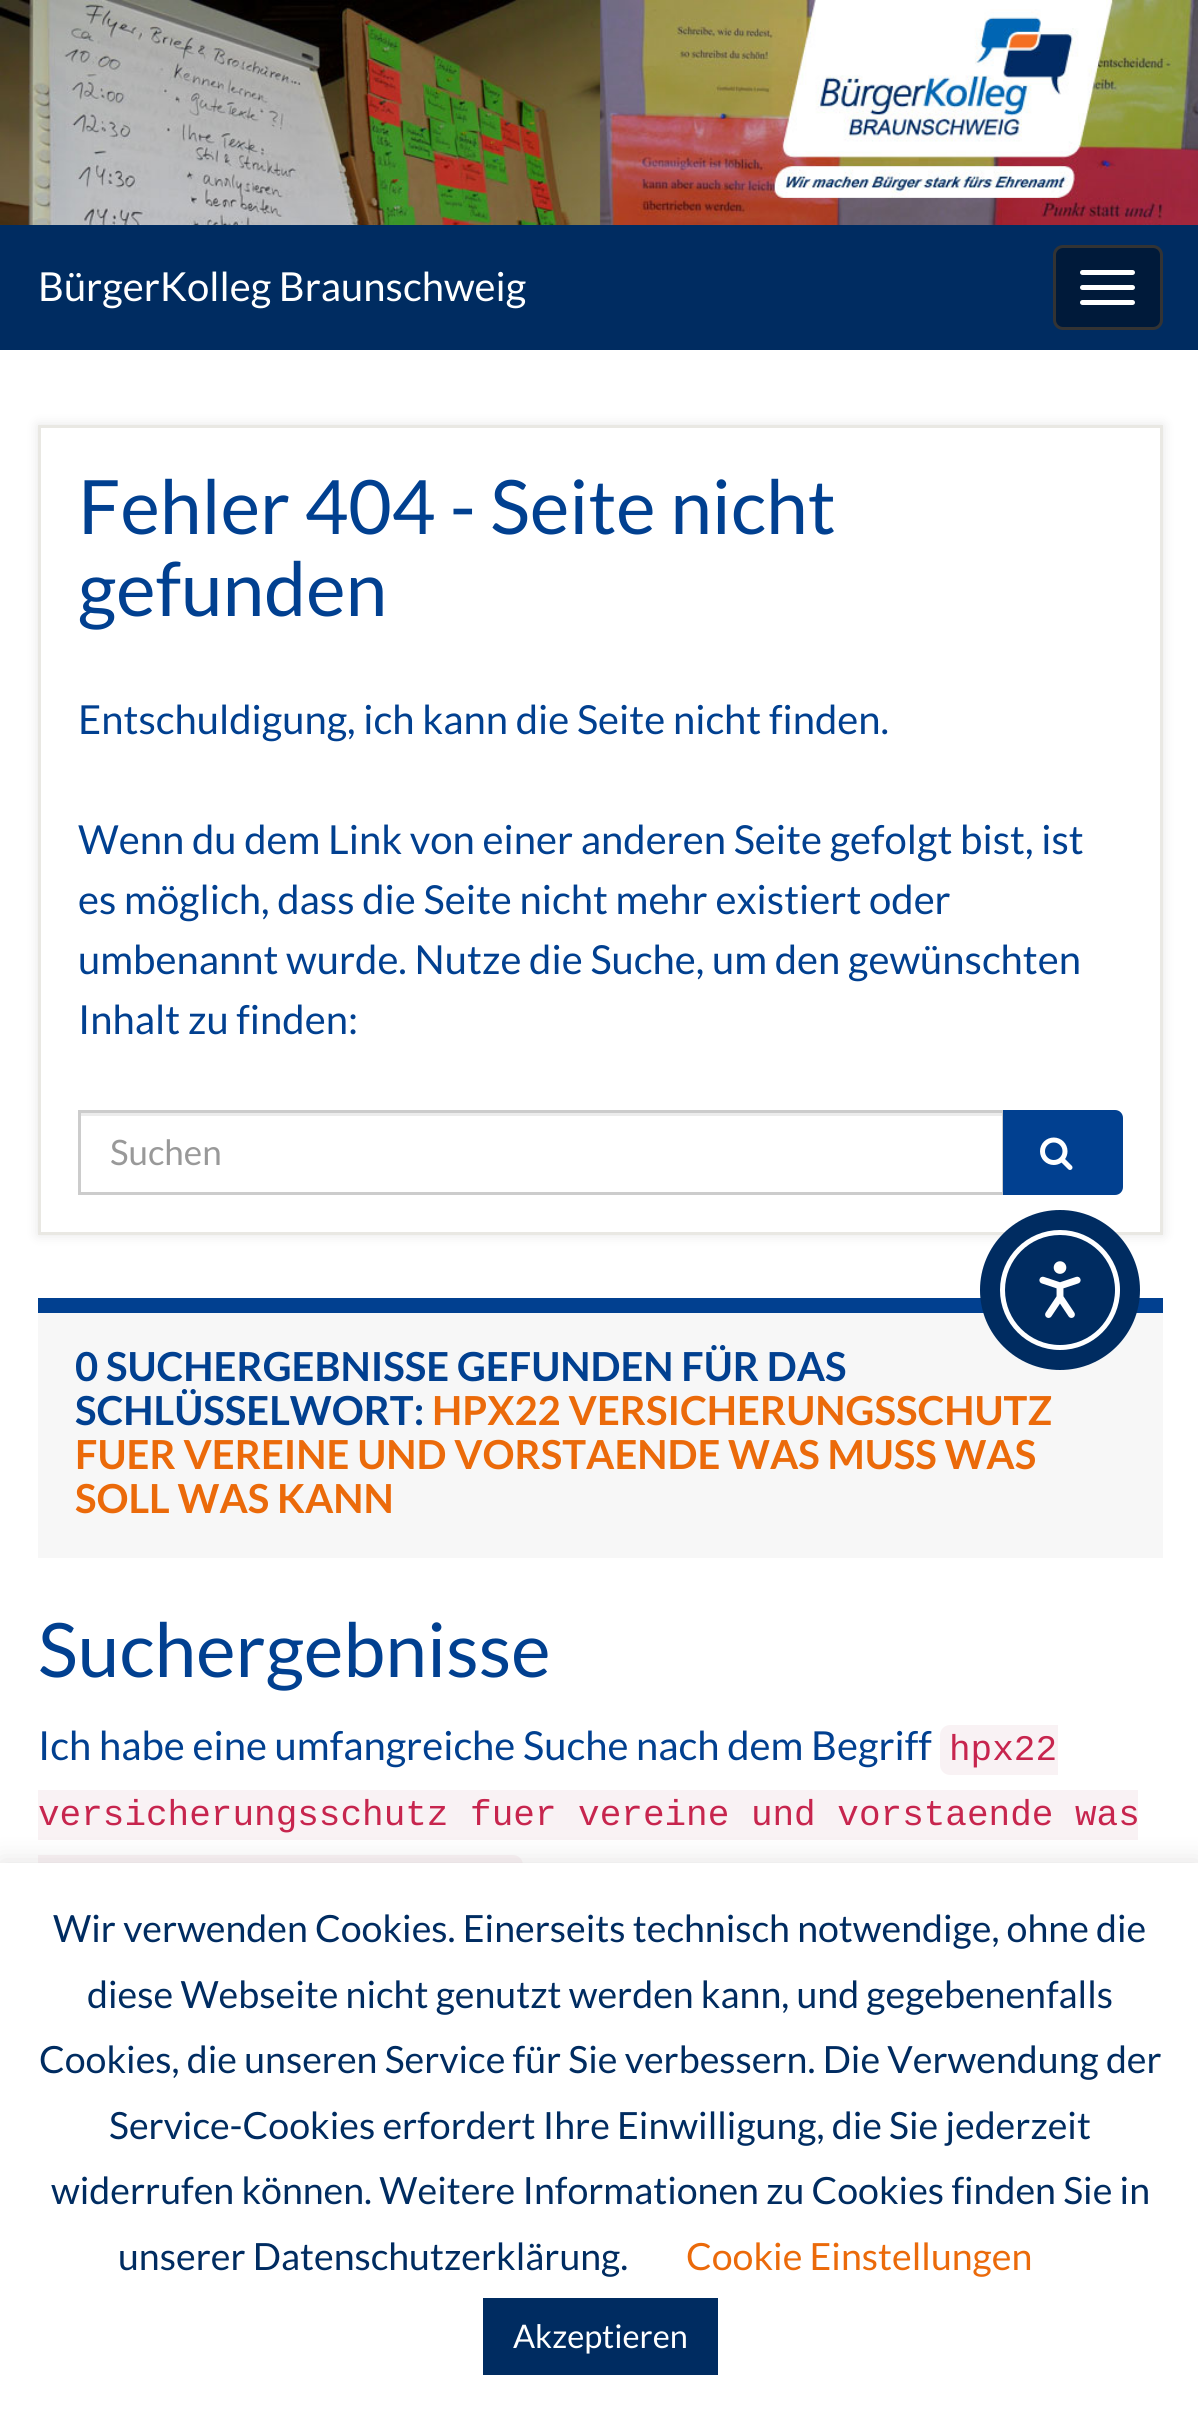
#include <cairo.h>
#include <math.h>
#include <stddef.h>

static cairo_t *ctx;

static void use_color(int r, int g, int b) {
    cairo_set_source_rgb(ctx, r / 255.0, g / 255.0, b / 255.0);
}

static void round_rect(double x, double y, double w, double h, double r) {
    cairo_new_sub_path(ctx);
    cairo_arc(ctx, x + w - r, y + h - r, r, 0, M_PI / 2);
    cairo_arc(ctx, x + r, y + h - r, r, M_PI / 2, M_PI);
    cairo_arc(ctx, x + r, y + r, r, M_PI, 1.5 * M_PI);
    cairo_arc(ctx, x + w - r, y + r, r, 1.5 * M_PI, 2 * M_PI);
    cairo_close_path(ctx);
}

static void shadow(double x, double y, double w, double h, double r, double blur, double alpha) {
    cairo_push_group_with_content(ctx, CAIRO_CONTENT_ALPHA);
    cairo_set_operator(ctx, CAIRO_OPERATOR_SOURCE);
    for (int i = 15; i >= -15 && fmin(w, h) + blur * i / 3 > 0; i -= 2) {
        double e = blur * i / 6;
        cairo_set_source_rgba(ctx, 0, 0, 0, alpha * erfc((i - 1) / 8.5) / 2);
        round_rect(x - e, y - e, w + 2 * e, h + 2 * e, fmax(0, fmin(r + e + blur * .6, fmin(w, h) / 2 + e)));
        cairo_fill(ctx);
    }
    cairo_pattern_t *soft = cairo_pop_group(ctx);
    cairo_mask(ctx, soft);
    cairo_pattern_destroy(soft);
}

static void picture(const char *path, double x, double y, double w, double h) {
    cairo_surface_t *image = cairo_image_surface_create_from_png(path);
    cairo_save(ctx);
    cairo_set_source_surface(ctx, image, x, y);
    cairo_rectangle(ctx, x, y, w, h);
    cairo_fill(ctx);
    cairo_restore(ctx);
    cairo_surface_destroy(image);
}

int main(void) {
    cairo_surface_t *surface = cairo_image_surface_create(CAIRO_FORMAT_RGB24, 1198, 2416);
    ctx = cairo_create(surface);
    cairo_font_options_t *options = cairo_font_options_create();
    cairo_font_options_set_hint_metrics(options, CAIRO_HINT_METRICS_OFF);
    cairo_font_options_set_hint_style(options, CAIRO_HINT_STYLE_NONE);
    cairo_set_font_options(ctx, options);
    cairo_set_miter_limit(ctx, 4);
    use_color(255, 255, 255);
    cairo_paint(ctx);
    picture("img1.png", 0, 0, 1198, 225);
    use_color(0, 44, 97);
    cairo_rectangle(ctx, 0, 225, 1198, 125);
    cairo_fill(ctx);
    cairo_select_font_face(ctx, "Lato", CAIRO_FONT_SLANT_NORMAL, CAIRO_FONT_WEIGHT_NORMAL);
    cairo_set_font_size(ctx, 40);
    use_color(255, 255, 255);
    cairo_move_to(ctx, 38, 301);
    cairo_show_text(ctx, "BürgerKolleg Braunschweig");
    use_color(0, 26, 58);
    round_rect(1054.5, 246.5, 107, 82, 8.5);
    cairo_fill_preserve(ctx);
    use_color(51, 51, 51);
    cairo_set_line_width(ctx, 3);
    cairo_stroke(ctx);
    use_color(255, 255, 255);
    round_rect(1080, 270, 55, 5, 2.5);
    cairo_fill(ctx);
    round_rect(1080, 285, 55, 5, 2.5);
    cairo_fill(ctx);
    round_rect(1080, 300, 55, 5, 2.5);
    cairo_fill(ctx);
    use_color(0, 0, 0);
    shadow(38, 425, 1125, 810, 0, 6, 0.1);
    use_color(255, 255, 255);
    cairo_rectangle(ctx, 39.5, 426.5, 1122, 807);
    cairo_fill_preserve(ctx);
    use_color(233, 232, 227);
    cairo_stroke(ctx);
    cairo_set_font_size(ctx, 75);
    use_color(1, 64, 144);
    cairo_move_to(ctx, 78, 534);
    cairo_show_text(ctx, "Fehler 404 - Seite nicht");
    cairo_move_to(ctx, 78, 616);
    cairo_show_text(ctx, "gefunden");
    cairo_set_font_size(ctx, 40);
    cairo_move_to(ctx, 78, 734);
    cairo_show_text(ctx, "Entschuldigung, ich kann die Seite nicht finden.");
    cairo_move_to(ctx, 78, 854);
    cairo_show_text(ctx, "Wenn du dem Link von einer anderen Seite gefolgt bist, ist");
    cairo_move_to(ctx, 78, 914);
    cairo_show_text(ctx, "es möglich, dass die Seite nicht mehr existiert oder");
    cairo_move_to(ctx, 78, 974);
    cairo_show_text(ctx, "umbenannt wurde. Nutze die Suche, um den gewünschten");
    cairo_move_to(ctx, 78, 1034);
    cairo_show_text(ctx, "Inhalt zu finden:");
    use_color(236, 236, 236);
    cairo_rectangle(ctx, 80, 1113, 923, 3);
    cairo_fill(ctx);
    cairo_rectangle(ctx, 79.5, 1111.5, 924, 82);
    use_color(204, 204, 204);
    cairo_stroke(ctx);
    cairo_set_font_size(ctx, 35);
    use_color(153, 153, 153);
    cairo_move_to(ctx, 110, 1165);
    cairo_show_text(ctx, "Suchen");
    use_color(1, 64, 144);
    cairo_new_path(ctx);
    cairo_move_to(ctx, 1003, 1110);
    cairo_line_to(ctx, 1115, 1110);
    cairo_curve_to(ctx, 1119.5, 1110, 1123, 1113.5, 1123, 1118);
    cairo_line_to(ctx, 1123, 1187);
    cairo_curve_to(ctx, 1123, 1191.5, 1119.5, 1195, 1115, 1195);
    cairo_line_to(ctx, 1003, 1195);
    cairo_close_path(ctx);
    cairo_fill(ctx);
    picture("img2.png", 1040, 1137, 33, 33);
    use_color(247, 247, 247);
    cairo_rectangle(ctx, 38, 1313, 1125, 245);
    cairo_fill(ctx);
    use_color(1, 64, 144);
    cairo_rectangle(ctx, 38, 1298, 1125, 15);
    cairo_fill(ctx);
    cairo_select_font_face(ctx, "Lato", CAIRO_FONT_SLANT_NORMAL, CAIRO_FONT_WEIGHT_BOLD);
    cairo_set_font_size(ctx, 40);
    cairo_move_to(ctx, 75, 1381);
    cairo_show_text(ctx, "0 SUCHERGEBNISSE GEFUNDEN FÜR DAS");
    cairo_move_to(ctx, 75, 1425);
    cairo_show_text(ctx, "SCHLÜSSELWORT:");
    use_color(235, 106, 10);
    cairo_move_to(ctx, 432, 1425);
    cairo_show_text(ctx, "HPX22 VERSICHERUNGSSCHUTZ");
    cairo_move_to(ctx, 75, 1469);
    cairo_show_text(ctx, "FUER VEREINE UND VORSTAENDE WAS MUSS WAS");
    cairo_move_to(ctx, 75, 1513);
    cairo_show_text(ctx, "SOLL WAS KANN");
    cairo_select_font_face(ctx, "Lato", CAIRO_FONT_SLANT_NORMAL, CAIRO_FONT_WEIGHT_NORMAL);
    cairo_set_font_size(ctx, 75);
    use_color(1, 64, 144);
    cairo_move_to(ctx, 38, 1677);
    cairo_show_text(ctx, "Suchergebnisse");
    cairo_set_font_size(ctx, 40);
    cairo_move_to(ctx, 38, 1760);
    cairo_show_text(ctx, "Ich habe eine umfangreiche Suche nach dem Begriff");
    use_color(249, 242, 244);
    cairo_new_path(ctx);
    cairo_move_to(ctx, 950, 1725);
    cairo_line_to(ctx, 1058, 1725);
    cairo_line_to(ctx, 1058, 1775);
    cairo_line_to(ctx, 950, 1775);
    cairo_curve_to(ctx, 944.5, 1775, 940, 1770.5, 940, 1765);
    cairo_line_to(ctx, 940, 1735);
    cairo_curve_to(ctx, 940, 1729.5, 944.5, 1725, 950, 1725);
    cairo_close_path(ctx);
    cairo_fill(ctx);
    cairo_select_font_face(ctx, "Liberation Mono", CAIRO_FONT_SLANT_NORMAL, CAIRO_FONT_WEIGHT_NORMAL);
    cairo_set_font_size(ctx, 36);
    use_color(199, 37, 78);
    cairo_move_to(ctx, 949, 1760);
    cairo_show_text(ctx, "hpx22");
    use_color(249, 242, 244);
    cairo_rectangle(ctx, 38, 1790, 1100, 50);
    cairo_fill(ctx);
    use_color(199, 37, 78);
    cairo_move_to(ctx, 38, 1825);
    cairo_show_text(ctx, "versicherungsschutz fuer vereine und vorstaende was");
    use_color(249, 242, 244);
    cairo_new_path(ctx);
    cairo_move_to(ctx, 38, 1855);
    cairo_line_to(ctx, 513, 1855);
    cairo_curve_to(ctx, 518.5, 1855, 523, 1859.5, 523, 1865);
    cairo_line_to(ctx, 523, 1895);
    cairo_curve_to(ctx, 523, 1900.5, 518.5, 1905, 513, 1905);
    cairo_line_to(ctx, 38, 1905);
    cairo_close_path(ctx);
    cairo_fill(ctx);
    use_color(0, 44, 97);
    cairo_arc(ctx, 1060, 1290, 80, 0, 2 * M_PI);
    cairo_fill(ctx);
    cairo_arc(ctx, 1060, 1290, 57.5, 0, 2 * M_PI);
    use_color(255, 255, 255);
    cairo_set_line_width(ctx, 5);
    cairo_stroke(ctx);
    picture("img3.png", 1039, 1261, 42, 57);
    use_color(172, 171, 171);
    shadow(0, 1860, 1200, 555, 0, 12.5, 0.3);
    use_color(255, 255, 255);
    cairo_rectangle(ctx, 0, 1863, 1198, 553);
    cairo_fill(ctx);
    cairo_select_font_face(ctx, "Lato", CAIRO_FONT_SLANT_NORMAL, CAIRO_FONT_WEIGHT_NORMAL);
    cairo_set_font_size(ctx, 37.5);
    use_color(0, 44, 97);
    cairo_move_to(ctx, 53, 1942);
    cairo_show_text(ctx, "Wir verwenden Cookies. Einerseits technisch notwendige, ohne die");
    cairo_move_to(ctx, 87, 2008);
    cairo_show_text(ctx, "diese Webseite nicht genutzt werden kann, und gegebenenfalls");
    cairo_move_to(ctx, 39, 2073);
    cairo_show_text(ctx, "Cookies, die unseren Service für Sie verbessern. Die Verwendung der");
    cairo_move_to(ctx, 109, 2139);
    cairo_show_text(ctx, "Service-Cookies erfordert Ihre Einwilligung, die Sie jederzeit");
    cairo_move_to(ctx, 51, 2204);
    cairo_show_text(ctx, "widerrufen können. Weitere Informationen zu Cookies finden Sie in");
    cairo_move_to(ctx, 118, 2270);
    cairo_show_text(ctx, "unserer Datenschutzerklärung.");
    use_color(235, 106, 10);
    cairo_move_to(ctx, 686, 2270);
    cairo_show_text(ctx, "Cookie Einstellungen");
    use_color(0, 44, 97);
    cairo_rectangle(ctx, 483, 2298, 235, 77);
    cairo_fill(ctx);
    cairo_set_font_size(ctx, 32.5);
    use_color(255, 255, 255);
    cairo_move_to(ctx, 513, 2348);
    cairo_show_text(ctx, "Akzeptieren");
    cairo_surface_write_to_png(surface, "result.png");
    cairo_font_options_destroy(options);
    cairo_destroy(ctx);
    cairo_surface_destroy(surface);
    return 0;
}
